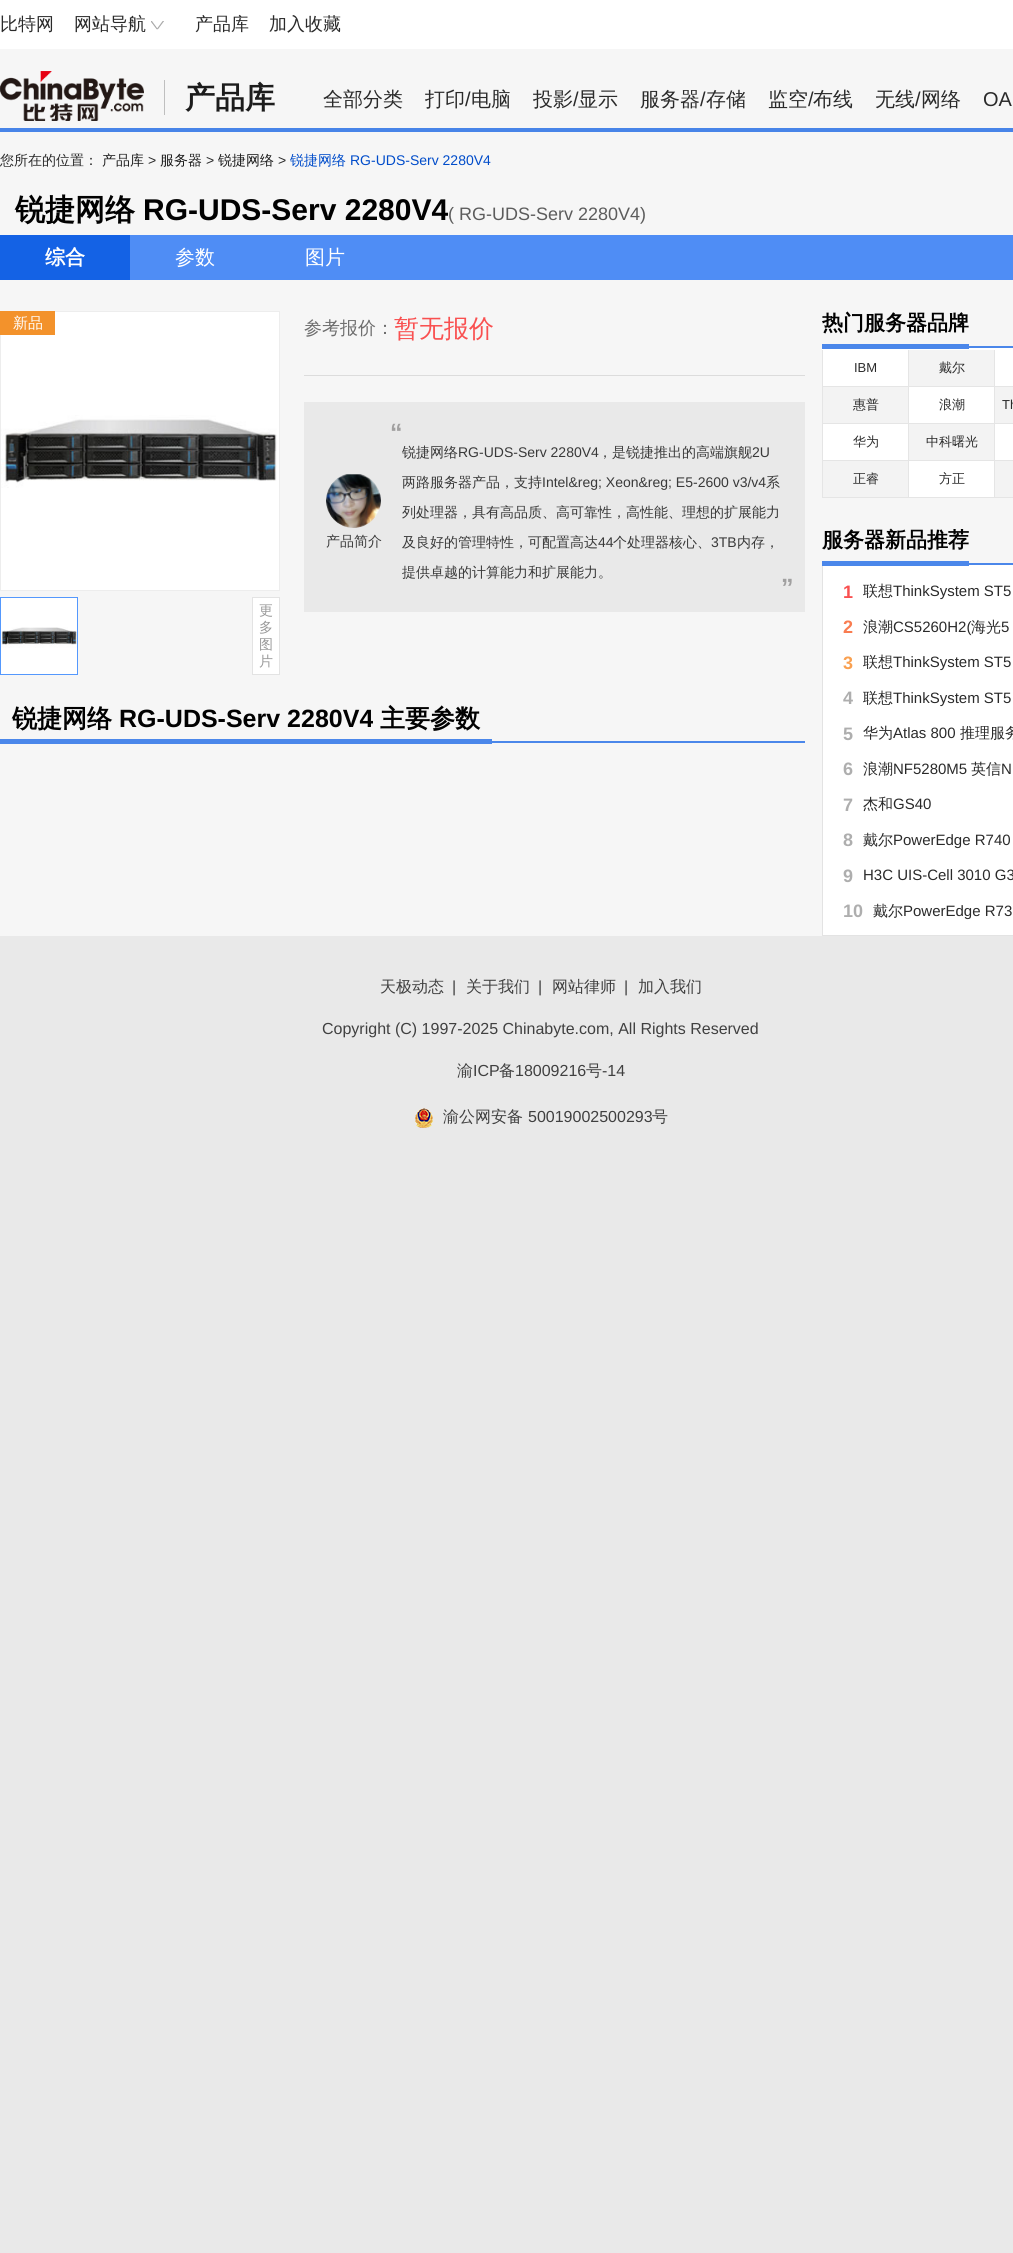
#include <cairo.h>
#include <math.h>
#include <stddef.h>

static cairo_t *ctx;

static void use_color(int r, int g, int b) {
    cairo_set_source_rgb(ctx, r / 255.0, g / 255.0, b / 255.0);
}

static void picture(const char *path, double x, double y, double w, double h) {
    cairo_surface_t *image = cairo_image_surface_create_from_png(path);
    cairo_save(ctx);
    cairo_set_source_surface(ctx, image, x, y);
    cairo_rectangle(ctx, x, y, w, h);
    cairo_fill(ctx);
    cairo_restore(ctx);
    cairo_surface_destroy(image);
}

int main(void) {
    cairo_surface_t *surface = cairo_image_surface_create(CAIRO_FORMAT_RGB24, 1013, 2253);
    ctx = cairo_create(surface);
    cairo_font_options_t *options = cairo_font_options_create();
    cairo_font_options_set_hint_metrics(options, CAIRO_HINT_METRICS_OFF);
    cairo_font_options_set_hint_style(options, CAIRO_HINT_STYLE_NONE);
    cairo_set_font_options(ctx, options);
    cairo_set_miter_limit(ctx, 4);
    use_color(233, 233, 233);
    cairo_paint(ctx);
    use_color(255, 255, 255);
    cairo_rectangle(ctx, 0, 0, 1013, 49);
    cairo_fill(ctx);
    cairo_select_font_face(ctx, "WenQuanYi Zen Hei Medium", CAIRO_FONT_SLANT_NORMAL, CAIRO_FONT_WEIGHT_NORMAL);
    cairo_set_font_size(ctx, 18);
    use_color(42, 42, 42);
    cairo_move_to(ctx, 0, 30);
    cairo_show_text(ctx, "比特网");
    cairo_move_to(ctx, 74, 30);
    cairo_show_text(ctx, "网站导航");
    picture("img1.png", 151, 21, 13, 9);
    cairo_move_to(ctx, 195, 30);
    cairo_show_text(ctx, "产品库");
    cairo_move_to(ctx, 269, 30);
    cairo_show_text(ctx, "加入收藏");
    use_color(246, 246, 246);
    cairo_rectangle(ctx, 0, 49, 1013, 887);
    cairo_fill(ctx);
    use_color(72, 132, 232);
    cairo_rectangle(ctx, 0, 128, 1013, 4);
    cairo_fill(ctx);
    picture("img2.png", 0, 71, 144, 50);
    use_color(191, 191, 191);
    cairo_rectangle(ctx, 164, 80, 1, 35);
    cairo_fill(ctx);
    cairo_select_font_face(ctx, "WenQuanYi Zen Hei", CAIRO_FONT_SLANT_NORMAL, CAIRO_FONT_WEIGHT_BOLD);
    cairo_set_font_size(ctx, 30);
    use_color(28, 28, 28);
    cairo_move_to(ctx, 185, 108);
    cairo_show_text(ctx, "产品库");
    cairo_select_font_face(ctx, "WenQuanYi Zen Hei Medium", CAIRO_FONT_SLANT_NORMAL, CAIRO_FONT_WEIGHT_NORMAL);
    cairo_set_font_size(ctx, 20);
    use_color(42, 42, 42);
    cairo_move_to(ctx, 323, 106);
    cairo_show_text(ctx, "全部分类");
    cairo_move_to(ctx, 425, 106);
    cairo_show_text(ctx, "打印");
    cairo_select_font_face(ctx, "Liberation Sans", CAIRO_FONT_SLANT_NORMAL, CAIRO_FONT_WEIGHT_NORMAL);
    cairo_move_to(ctx, 465, 106);
    cairo_show_text(ctx, "/");
    cairo_select_font_face(ctx, "WenQuanYi Zen Hei Medium", CAIRO_FONT_SLANT_NORMAL, CAIRO_FONT_WEIGHT_NORMAL);
    cairo_move_to(ctx, 471, 106);
    cairo_show_text(ctx, "电脑");
    cairo_move_to(ctx, 533, 106);
    cairo_show_text(ctx, "投影");
    cairo_select_font_face(ctx, "Liberation Sans", CAIRO_FONT_SLANT_NORMAL, CAIRO_FONT_WEIGHT_NORMAL);
    cairo_move_to(ctx, 573, 106);
    cairo_show_text(ctx, "/");
    cairo_select_font_face(ctx, "WenQuanYi Zen Hei Medium", CAIRO_FONT_SLANT_NORMAL, CAIRO_FONT_WEIGHT_NORMAL);
    cairo_move_to(ctx, 578, 106);
    cairo_show_text(ctx, "显示");
    cairo_move_to(ctx, 640, 106);
    cairo_show_text(ctx, "服务器");
    cairo_select_font_face(ctx, "Liberation Sans", CAIRO_FONT_SLANT_NORMAL, CAIRO_FONT_WEIGHT_NORMAL);
    cairo_move_to(ctx, 700, 106);
    cairo_show_text(ctx, "/");
    cairo_select_font_face(ctx, "WenQuanYi Zen Hei Medium", CAIRO_FONT_SLANT_NORMAL, CAIRO_FONT_WEIGHT_NORMAL);
    cairo_move_to(ctx, 706, 106);
    cairo_show_text(ctx, "存储");
    cairo_move_to(ctx, 768, 106);
    cairo_show_text(ctx, "监空");
    cairo_select_font_face(ctx, "Liberation Sans", CAIRO_FONT_SLANT_NORMAL, CAIRO_FONT_WEIGHT_NORMAL);
    cairo_move_to(ctx, 808, 106);
    cairo_show_text(ctx, "/");
    cairo_select_font_face(ctx, "WenQuanYi Zen Hei Medium", CAIRO_FONT_SLANT_NORMAL, CAIRO_FONT_WEIGHT_NORMAL);
    cairo_move_to(ctx, 813, 106);
    cairo_show_text(ctx, "布线");
    cairo_move_to(ctx, 875, 106);
    cairo_show_text(ctx, "无线");
    cairo_select_font_face(ctx, "Liberation Sans", CAIRO_FONT_SLANT_NORMAL, CAIRO_FONT_WEIGHT_NORMAL);
    cairo_move_to(ctx, 915, 106);
    cairo_show_text(ctx, "/");
    cairo_select_font_face(ctx, "WenQuanYi Zen Hei Medium", CAIRO_FONT_SLANT_NORMAL, CAIRO_FONT_WEIGHT_NORMAL);
    cairo_move_to(ctx, 921, 106);
    cairo_show_text(ctx, "网络");
    cairo_select_font_face(ctx, "Liberation Sans", CAIRO_FONT_SLANT_NORMAL, CAIRO_FONT_WEIGHT_NORMAL);
    cairo_move_to(ctx, 983, 106);
    cairo_show_text(ctx, "OA");
    cairo_select_font_face(ctx, "WenQuanYi Zen Hei Medium", CAIRO_FONT_SLANT_NORMAL, CAIRO_FONT_WEIGHT_NORMAL);
    cairo_set_font_size(ctx, 14);
    cairo_move_to(ctx, 0, 165);
    cairo_show_text(ctx, "您所在的位置：");
    use_color(28, 28, 28);
    cairo_move_to(ctx, 102, 165);
    cairo_show_text(ctx, "产品库");
    cairo_select_font_face(ctx, "Liberation Sans", CAIRO_FONT_SLANT_NORMAL, CAIRO_FONT_WEIGHT_NORMAL);
    use_color(42, 42, 42);
    cairo_move_to(ctx, 148, 165);
    cairo_show_text(ctx, ">");
    cairo_select_font_face(ctx, "WenQuanYi Zen Hei Medium", CAIRO_FONT_SLANT_NORMAL, CAIRO_FONT_WEIGHT_NORMAL);
    use_color(28, 28, 28);
    cairo_move_to(ctx, 160, 165);
    cairo_show_text(ctx, "服务器");
    cairo_select_font_face(ctx, "Liberation Sans", CAIRO_FONT_SLANT_NORMAL, CAIRO_FONT_WEIGHT_NORMAL);
    use_color(42, 42, 42);
    cairo_move_to(ctx, 206, 165);
    cairo_show_text(ctx, ">");
    cairo_select_font_face(ctx, "WenQuanYi Zen Hei Medium", CAIRO_FONT_SLANT_NORMAL, CAIRO_FONT_WEIGHT_NORMAL);
    use_color(28, 28, 28);
    cairo_move_to(ctx, 218, 165);
    cairo_show_text(ctx, "锐捷网络");
    cairo_select_font_face(ctx, "Liberation Sans", CAIRO_FONT_SLANT_NORMAL, CAIRO_FONT_WEIGHT_NORMAL);
    use_color(42, 42, 42);
    cairo_move_to(ctx, 278, 165);
    cairo_show_text(ctx, ">");
    cairo_select_font_face(ctx, "WenQuanYi Zen Hei Medium", CAIRO_FONT_SLANT_NORMAL, CAIRO_FONT_WEIGHT_NORMAL);
    use_color(0, 76, 202);
    cairo_move_to(ctx, 290, 165);
    cairo_show_text(ctx, "锐捷网络");
    cairo_select_font_face(ctx, "Liberation Sans", CAIRO_FONT_SLANT_NORMAL, CAIRO_FONT_WEIGHT_NORMAL);
    cairo_move_to(ctx, 350, 165);
    cairo_show_text(ctx, "RG-UDS-Serv 2280V4");
    cairo_select_font_face(ctx, "WenQuanYi Zen Hei", CAIRO_FONT_SLANT_NORMAL, CAIRO_FONT_WEIGHT_BOLD);
    cairo_set_font_size(ctx, 30);
    use_color(1, 1, 1);
    cairo_move_to(ctx, 15, 220);
    cairo_show_text(ctx, "锐捷网络");
    cairo_select_font_face(ctx, "Liberation Sans", CAIRO_FONT_SLANT_NORMAL, CAIRO_FONT_WEIGHT_BOLD);
    cairo_move_to(ctx, 143, 220);
    cairo_show_text(ctx, "RG-UDS-Serv 2280V4");
    cairo_select_font_face(ctx, "Liberation Sans", CAIRO_FONT_SLANT_NORMAL, CAIRO_FONT_WEIGHT_NORMAL);
    cairo_set_font_size(ctx, 18);
    use_color(92, 92, 92);
    cairo_move_to(ctx, 448, 220);
    cairo_show_text(ctx, "( RG-UDS-Serv 2280V4)");
    use_color(79, 141, 245);
    cairo_rectangle(ctx, 130, 235, 883, 45);
    cairo_fill(ctx);
    use_color(20, 98, 229);
    cairo_rectangle(ctx, 0, 235, 130, 45);
    cairo_fill(ctx);
    cairo_select_font_face(ctx, "WenQuanYi Zen Hei", CAIRO_FONT_SLANT_NORMAL, CAIRO_FONT_WEIGHT_BOLD);
    cairo_set_font_size(ctx, 20);
    use_color(255, 255, 255);
    cairo_move_to(ctx, 45, 264);
    cairo_show_text(ctx, "综合");
    cairo_select_font_face(ctx, "WenQuanYi Zen Hei Medium", CAIRO_FONT_SLANT_NORMAL, CAIRO_FONT_WEIGHT_NORMAL);
    cairo_move_to(ctx, 175, 264);
    cairo_show_text(ctx, "参数");
    cairo_move_to(ctx, 305, 264);
    cairo_show_text(ctx, "图片");
    cairo_rectangle(ctx, 0.5, 311.5, 279, 279);
    cairo_fill_preserve(ctx);
    use_color(237, 237, 237);
    cairo_set_line_width(ctx, 1);
    cairo_stroke(ctx);
    picture("img3.png", 1, 415, 276, 73);
    use_color(243, 146, 43);
    cairo_rectangle(ctx, 0, 311, 55, 24);
    cairo_fill(ctx);
    cairo_set_font_size(ctx, 15);
    use_color(255, 255, 255);
    cairo_move_to(ctx, 13, 328);
    cairo_show_text(ctx, "新品");
    cairo_rectangle(ctx, 0.5, 597.5, 77, 77);
    cairo_fill_preserve(ctx);
    use_color(84, 152, 253);
    cairo_stroke(ctx);
    picture("img4.png", 1, 627, 76, 21);
    use_color(255, 255, 255);
    cairo_rectangle(ctx, 252.5, 597.5, 27, 77);
    cairo_fill_preserve(ctx);
    use_color(227, 227, 227);
    cairo_stroke(ctx);
    cairo_set_font_size(ctx, 14);
    use_color(153, 153, 153);
    cairo_move_to(ctx, 259, 615);
    cairo_show_text(ctx, "更");
    cairo_move_to(ctx, 259, 632);
    cairo_show_text(ctx, "多");
    cairo_move_to(ctx, 259, 649);
    cairo_show_text(ctx, "图");
    cairo_move_to(ctx, 259, 666);
    cairo_show_text(ctx, "片");
    cairo_set_font_size(ctx, 18);
    use_color(110, 110, 110);
    cairo_move_to(ctx, 304, 334);
    cairo_show_text(ctx, "参考报价：");
    cairo_set_font_size(ctx, 25);
    use_color(249, 80, 80);
    cairo_move_to(ctx, 394, 337);
    cairo_show_text(ctx, "暂无报价");
    use_color(220, 220, 220);
    cairo_rectangle(ctx, 304, 375, 501, 1);
    cairo_fill(ctx);
    use_color(233, 233, 233);
    cairo_rectangle(ctx, 304, 402, 501, 210);
    cairo_fill(ctx);
    picture("img5.png", 326, 474, 55, 54);
    cairo_set_font_size(ctx, 14);
    use_color(57, 57, 57);
    cairo_move_to(ctx, 326, 546);
    cairo_show_text(ctx, "产品简介");
    cairo_select_font_face(ctx, "Liberation Sans", CAIRO_FONT_SLANT_NORMAL, CAIRO_FONT_WEIGHT_BOLD);
    cairo_set_font_size(ctx, 25);
    use_color(161, 160, 160);
    cairo_move_to(ctx, 390, 441);
    cairo_show_text(ctx, "“");
    cairo_select_font_face(ctx, "WenQuanYi Zen Hei Medium", CAIRO_FONT_SLANT_NORMAL, CAIRO_FONT_WEIGHT_NORMAL);
    cairo_set_font_size(ctx, 14);
    use_color(57, 57, 57);
    cairo_move_to(ctx, 402, 457);
    cairo_show_text(ctx, "锐捷网络");
    cairo_select_font_face(ctx, "Liberation Sans", CAIRO_FONT_SLANT_NORMAL, CAIRO_FONT_WEIGHT_NORMAL);
    cairo_move_to(ctx, 458, 457);
    cairo_show_text(ctx, "RG-UDS-Serv 2280V4");
    cairo_select_font_face(ctx, "WenQuanYi Zen Hei Medium", CAIRO_FONT_SLANT_NORMAL, CAIRO_FONT_WEIGHT_NORMAL);
    cairo_move_to(ctx, 598, 457);
    cairo_show_text(ctx, "，是锐捷推出的高端旗舰");
    cairo_select_font_face(ctx, "Liberation Sans", CAIRO_FONT_SLANT_NORMAL, CAIRO_FONT_WEIGHT_NORMAL);
    cairo_move_to(ctx, 752, 457);
    cairo_show_text(ctx, "2U");
    cairo_select_font_face(ctx, "WenQuanYi Zen Hei Medium", CAIRO_FONT_SLANT_NORMAL, CAIRO_FONT_WEIGHT_NORMAL);
    cairo_move_to(ctx, 402, 487);
    cairo_show_text(ctx, "两路服务器产品，支持");
    cairo_select_font_face(ctx, "Liberation Sans", CAIRO_FONT_SLANT_NORMAL, CAIRO_FONT_WEIGHT_NORMAL);
    cairo_move_to(ctx, 542, 487);
    cairo_show_text(ctx, "Intel&reg; Xeon&reg; E5-2600 v3/v4");
    cairo_select_font_face(ctx, "WenQuanYi Zen Hei Medium", CAIRO_FONT_SLANT_NORMAL, CAIRO_FONT_WEIGHT_NORMAL);
    cairo_move_to(ctx, 766, 487);
    cairo_show_text(ctx, "系");
    cairo_move_to(ctx, 402, 517);
    cairo_show_text(ctx, "列处理器，具有高品质、高可靠性，高性能、理想的扩展能力");
    cairo_move_to(ctx, 402, 547);
    cairo_show_text(ctx, "及良好的管理特性，可配置高达");
    cairo_select_font_face(ctx, "Liberation Sans", CAIRO_FONT_SLANT_NORMAL, CAIRO_FONT_WEIGHT_NORMAL);
    cairo_move_to(ctx, 598, 547);
    cairo_show_text(ctx, "44");
    cairo_select_font_face(ctx, "WenQuanYi Zen Hei Medium", CAIRO_FONT_SLANT_NORMAL, CAIRO_FONT_WEIGHT_NORMAL);
    cairo_move_to(ctx, 613, 547);
    cairo_show_text(ctx, "个处理器核心、");
    cairo_select_font_face(ctx, "Liberation Sans", CAIRO_FONT_SLANT_NORMAL, CAIRO_FONT_WEIGHT_NORMAL);
    cairo_move_to(ctx, 711, 547);
    cairo_show_text(ctx, "3TB");
    cairo_select_font_face(ctx, "WenQuanYi Zen Hei Medium", CAIRO_FONT_SLANT_NORMAL, CAIRO_FONT_WEIGHT_NORMAL);
    cairo_move_to(ctx, 737, 547);
    cairo_show_text(ctx, "内存，");
    cairo_move_to(ctx, 402, 577);
    cairo_show_text(ctx, "提供卓越的计算能力和扩展能力。");
    cairo_select_font_face(ctx, "Liberation Sans", CAIRO_FONT_SLANT_NORMAL, CAIRO_FONT_WEIGHT_BOLD);
    cairo_set_font_size(ctx, 25);
    use_color(161, 160, 160);
    cairo_move_to(ctx, 781, 596);
    cairo_show_text(ctx, "”");
    use_color(75, 135, 234);
    cairo_rectangle(ctx, 492, 741, 313, 2);
    cairo_fill(ctx);
    cairo_select_font_face(ctx, "WenQuanYi Zen Hei", CAIRO_FONT_SLANT_NORMAL, CAIRO_FONT_WEIGHT_BOLD);
    use_color(1, 1, 1);
    cairo_move_to(ctx, 12, 727);
    cairo_show_text(ctx, "锐捷网络");
    cairo_select_font_face(ctx, "Liberation Sans", CAIRO_FONT_SLANT_NORMAL, CAIRO_FONT_WEIGHT_BOLD);
    cairo_move_to(ctx, 119, 727);
    cairo_show_text(ctx, "RG-UDS-Serv 2280V4");
    cairo_select_font_face(ctx, "WenQuanYi Zen Hei", CAIRO_FONT_SLANT_NORMAL, CAIRO_FONT_WEIGHT_BOLD);
    cairo_move_to(ctx, 380, 727);
    cairo_show_text(ctx, "主要参数");
    use_color(75, 135, 234);
    cairo_rectangle(ctx, 0, 739, 492, 5);
    cairo_fill(ctx);
    cairo_rectangle(ctx, 969, 346, 44, 2);
    cairo_fill(ctx);
    cairo_set_font_size(ctx, 21);
    use_color(1, 1, 1);
    cairo_move_to(ctx, 822, 330);
    cairo_show_text(ctx, "热门服务器品牌");
    use_color(255, 255, 255);
    cairo_rectangle(ctx, 822, 348, 191, 149);
    cairo_fill(ctx);
    use_color(75, 135, 234);
    cairo_rectangle(ctx, 822, 344, 147, 5);
    cairo_fill(ctx);
    use_color(229, 229, 229);
    cairo_rectangle(ctx, 822, 386, 191, 1);
    cairo_fill(ctx);
    cairo_rectangle(ctx, 822, 350, 1, 37);
    cairo_fill(ctx);
    cairo_select_font_face(ctx, "Liberation Sans", CAIRO_FONT_SLANT_NORMAL, CAIRO_FONT_WEIGHT_NORMAL);
    cairo_set_font_size(ctx, 13);
    use_color(42, 42, 42);
    cairo_move_to(ctx, 854, 372);
    cairo_show_text(ctx, "IBM");
    use_color(243, 243, 243);
    cairo_rectangle(ctx, 909, 350, 85, 36);
    cairo_fill(ctx);
    use_color(229, 229, 229);
    cairo_rectangle(ctx, 908, 350, 1, 37);
    cairo_fill(ctx);
    cairo_select_font_face(ctx, "WenQuanYi Zen Hei Medium", CAIRO_FONT_SLANT_NORMAL, CAIRO_FONT_WEIGHT_NORMAL);
    use_color(42, 42, 42);
    cairo_move_to(ctx, 939, 372);
    cairo_show_text(ctx, "戴尔");
    use_color(229, 229, 229);
    cairo_rectangle(ctx, 994, 350, 1, 37);
    cairo_fill(ctx);
    use_color(243, 243, 243);
    cairo_rectangle(ctx, 823, 387, 85, 36);
    cairo_fill(ctx);
    use_color(229, 229, 229);
    cairo_rectangle(ctx, 822, 423, 191, 1);
    cairo_fill(ctx);
    cairo_rectangle(ctx, 822, 387, 1, 37);
    cairo_fill(ctx);
    use_color(42, 42, 42);
    cairo_move_to(ctx, 853, 409);
    cairo_show_text(ctx, "惠普");
    use_color(229, 229, 229);
    cairo_rectangle(ctx, 908, 387, 1, 37);
    cairo_fill(ctx);
    use_color(42, 42, 42);
    cairo_move_to(ctx, 939, 409);
    cairo_show_text(ctx, "浪潮");
    use_color(243, 243, 243);
    cairo_rectangle(ctx, 995, 387, 18, 36);
    cairo_fill(ctx);
    use_color(229, 229, 229);
    cairo_rectangle(ctx, 994, 387, 1, 37);
    cairo_fill(ctx);
    cairo_select_font_face(ctx, "Liberation Sans", CAIRO_FONT_SLANT_NORMAL, CAIRO_FONT_WEIGHT_NORMAL);
    use_color(42, 42, 42);
    cairo_move_to(ctx, 1002, 409);
    cairo_show_text(ctx, "Th");
    use_color(229, 229, 229);
    cairo_rectangle(ctx, 822, 460, 191, 1);
    cairo_fill(ctx);
    cairo_rectangle(ctx, 822, 424, 1, 37);
    cairo_fill(ctx);
    cairo_select_font_face(ctx, "WenQuanYi Zen Hei Medium", CAIRO_FONT_SLANT_NORMAL, CAIRO_FONT_WEIGHT_NORMAL);
    use_color(42, 42, 42);
    cairo_move_to(ctx, 853, 446);
    cairo_show_text(ctx, "华为");
    use_color(243, 243, 243);
    cairo_rectangle(ctx, 909, 424, 85, 36);
    cairo_fill(ctx);
    use_color(229, 229, 229);
    cairo_rectangle(ctx, 908, 424, 1, 37);
    cairo_fill(ctx);
    use_color(42, 42, 42);
    cairo_move_to(ctx, 926, 446);
    cairo_show_text(ctx, "中科曙光");
    use_color(229, 229, 229);
    cairo_rectangle(ctx, 994, 424, 1, 37);
    cairo_fill(ctx);
    use_color(243, 243, 243);
    cairo_rectangle(ctx, 823, 461, 85, 36);
    cairo_fill(ctx);
    use_color(229, 229, 229);
    cairo_rectangle(ctx, 822, 497, 191, 1);
    cairo_fill(ctx);
    cairo_rectangle(ctx, 822, 461, 1, 37);
    cairo_fill(ctx);
    use_color(42, 42, 42);
    cairo_move_to(ctx, 853, 483);
    cairo_show_text(ctx, "正睿");
    use_color(229, 229, 229);
    cairo_rectangle(ctx, 908, 461, 1, 37);
    cairo_fill(ctx);
    use_color(42, 42, 42);
    cairo_move_to(ctx, 939, 483);
    cairo_show_text(ctx, "方正");
    use_color(243, 243, 243);
    cairo_rectangle(ctx, 995, 461, 18, 36);
    cairo_fill(ctx);
    use_color(229, 229, 229);
    cairo_rectangle(ctx, 994, 461, 1, 37);
    cairo_fill(ctx);
    use_color(75, 135, 234);
    cairo_rectangle(ctx, 969, 563, 44, 2);
    cairo_fill(ctx);
    cairo_select_font_face(ctx, "WenQuanYi Zen Hei", CAIRO_FONT_SLANT_NORMAL, CAIRO_FONT_WEIGHT_BOLD);
    cairo_set_font_size(ctx, 21);
    use_color(1, 1, 1);
    cairo_move_to(ctx, 822, 547);
    cairo_show_text(ctx, "服务器新品推荐");
    use_color(255, 255, 255);
    cairo_rectangle(ctx, 823, 565, 190, 370);
    cairo_fill(ctx);
    use_color(227, 227, 227);
    cairo_rectangle(ctx, 822, 935, 191, 1);
    cairo_fill(ctx);
    cairo_rectangle(ctx, 822, 565, 1, 371);
    cairo_fill(ctx);
    use_color(75, 135, 234);
    cairo_rectangle(ctx, 822, 561, 147, 5);
    cairo_fill(ctx);
    cairo_select_font_face(ctx, "Liberation Sans", CAIRO_FONT_SLANT_NORMAL, CAIRO_FONT_WEIGHT_BOLD);
    cairo_set_font_size(ctx, 18);
    use_color(249, 80, 80);
    cairo_move_to(ctx, 843, 598);
    cairo_show_text(ctx, "1");
    cairo_select_font_face(ctx, "WenQuanYi Zen Hei Medium", CAIRO_FONT_SLANT_NORMAL, CAIRO_FONT_WEIGHT_NORMAL);
    cairo_set_font_size(ctx, 15);
    use_color(42, 42, 42);
    cairo_move_to(ctx, 863, 596);
    cairo_show_text(ctx, "联想");
    cairo_select_font_face(ctx, "Liberation Sans", CAIRO_FONT_SLANT_NORMAL, CAIRO_FONT_WEIGHT_NORMAL);
    cairo_move_to(ctx, 893, 596);
    cairo_show_text(ctx, "ThinkSystem ST5");
    cairo_select_font_face(ctx, "Liberation Sans", CAIRO_FONT_SLANT_NORMAL, CAIRO_FONT_WEIGHT_BOLD);
    cairo_set_font_size(ctx, 18);
    use_color(249, 124, 80);
    cairo_move_to(ctx, 843, 633);
    cairo_show_text(ctx, "2");
    cairo_select_font_face(ctx, "WenQuanYi Zen Hei Medium", CAIRO_FONT_SLANT_NORMAL, CAIRO_FONT_WEIGHT_NORMAL);
    cairo_set_font_size(ctx, 15);
    use_color(42, 42, 42);
    cairo_move_to(ctx, 863, 632);
    cairo_show_text(ctx, "浪潮");
    cairo_select_font_face(ctx, "Liberation Sans", CAIRO_FONT_SLANT_NORMAL, CAIRO_FONT_WEIGHT_NORMAL);
    cairo_move_to(ctx, 893, 632);
    cairo_show_text(ctx, "CS5260H2(");
    cairo_select_font_face(ctx, "WenQuanYi Zen Hei Medium", CAIRO_FONT_SLANT_NORMAL, CAIRO_FONT_WEIGHT_NORMAL);
    cairo_move_to(ctx, 971, 632);
    cairo_show_text(ctx, "海光");
    cairo_select_font_face(ctx, "Liberation Sans", CAIRO_FONT_SLANT_NORMAL, CAIRO_FONT_WEIGHT_NORMAL);
    cairo_move_to(ctx, 1001, 632);
    cairo_show_text(ctx, "5");
    cairo_select_font_face(ctx, "Liberation Sans", CAIRO_FONT_SLANT_NORMAL, CAIRO_FONT_WEIGHT_BOLD);
    cairo_set_font_size(ctx, 18);
    use_color(249, 160, 80);
    cairo_move_to(ctx, 843, 669);
    cairo_show_text(ctx, "3");
    cairo_select_font_face(ctx, "WenQuanYi Zen Hei Medium", CAIRO_FONT_SLANT_NORMAL, CAIRO_FONT_WEIGHT_NORMAL);
    cairo_set_font_size(ctx, 15);
    use_color(42, 42, 42);
    cairo_move_to(ctx, 863, 667);
    cairo_show_text(ctx, "联想");
    cairo_select_font_face(ctx, "Liberation Sans", CAIRO_FONT_SLANT_NORMAL, CAIRO_FONT_WEIGHT_NORMAL);
    cairo_move_to(ctx, 893, 667);
    cairo_show_text(ctx, "ThinkSystem ST5");
    cairo_select_font_face(ctx, "Liberation Sans", CAIRO_FONT_SLANT_NORMAL, CAIRO_FONT_WEIGHT_BOLD);
    cairo_set_font_size(ctx, 18);
    use_color(174, 174, 174);
    cairo_move_to(ctx, 843, 704);
    cairo_show_text(ctx, "4");
    cairo_select_font_face(ctx, "WenQuanYi Zen Hei Medium", CAIRO_FONT_SLANT_NORMAL, CAIRO_FONT_WEIGHT_NORMAL);
    cairo_set_font_size(ctx, 15);
    use_color(42, 42, 42);
    cairo_move_to(ctx, 863, 703);
    cairo_show_text(ctx, "联想");
    cairo_select_font_face(ctx, "Liberation Sans", CAIRO_FONT_SLANT_NORMAL, CAIRO_FONT_WEIGHT_NORMAL);
    cairo_move_to(ctx, 893, 703);
    cairo_show_text(ctx, "ThinkSystem ST5");
    cairo_select_font_face(ctx, "Liberation Sans", CAIRO_FONT_SLANT_NORMAL, CAIRO_FONT_WEIGHT_BOLD);
    cairo_set_font_size(ctx, 18);
    use_color(174, 174, 174);
    cairo_move_to(ctx, 843, 740);
    cairo_show_text(ctx, "5");
    cairo_select_font_face(ctx, "WenQuanYi Zen Hei Medium", CAIRO_FONT_SLANT_NORMAL, CAIRO_FONT_WEIGHT_NORMAL);
    cairo_set_font_size(ctx, 15);
    use_color(42, 42, 42);
    cairo_move_to(ctx, 863, 738);
    cairo_show_text(ctx, "华为");
    cairo_select_font_face(ctx, "Liberation Sans", CAIRO_FONT_SLANT_NORMAL, CAIRO_FONT_WEIGHT_NORMAL);
    cairo_move_to(ctx, 893, 738);
    cairo_show_text(ctx, "Atlas 800");
    cairo_select_font_face(ctx, "WenQuanYi Zen Hei Medium", CAIRO_FONT_SLANT_NORMAL, CAIRO_FONT_WEIGHT_NORMAL);
    cairo_move_to(ctx, 960, 738);
    cairo_show_text(ctx, "推理服务");
    cairo_select_font_face(ctx, "Liberation Sans", CAIRO_FONT_SLANT_NORMAL, CAIRO_FONT_WEIGHT_BOLD);
    cairo_set_font_size(ctx, 18);
    use_color(174, 174, 174);
    cairo_move_to(ctx, 843, 775);
    cairo_show_text(ctx, "6");
    cairo_select_font_face(ctx, "WenQuanYi Zen Hei Medium", CAIRO_FONT_SLANT_NORMAL, CAIRO_FONT_WEIGHT_NORMAL);
    cairo_set_font_size(ctx, 15);
    use_color(42, 42, 42);
    cairo_move_to(ctx, 863, 774);
    cairo_show_text(ctx, "浪潮");
    cairo_select_font_face(ctx, "Liberation Sans", CAIRO_FONT_SLANT_NORMAL, CAIRO_FONT_WEIGHT_NORMAL);
    cairo_move_to(ctx, 893, 774);
    cairo_show_text(ctx, "NF5280M5");
    cairo_select_font_face(ctx, "WenQuanYi Zen Hei Medium", CAIRO_FONT_SLANT_NORMAL, CAIRO_FONT_WEIGHT_NORMAL);
    cairo_move_to(ctx, 971, 774);
    cairo_show_text(ctx, "英信");
    cairo_select_font_face(ctx, "Liberation Sans", CAIRO_FONT_SLANT_NORMAL, CAIRO_FONT_WEIGHT_NORMAL);
    cairo_move_to(ctx, 1001, 774);
    cairo_show_text(ctx, "N");
    cairo_select_font_face(ctx, "Liberation Sans", CAIRO_FONT_SLANT_NORMAL, CAIRO_FONT_WEIGHT_BOLD);
    cairo_set_font_size(ctx, 18);
    use_color(174, 174, 174);
    cairo_move_to(ctx, 843, 811);
    cairo_show_text(ctx, "7");
    cairo_select_font_face(ctx, "WenQuanYi Zen Hei Medium", CAIRO_FONT_SLANT_NORMAL, CAIRO_FONT_WEIGHT_NORMAL);
    cairo_set_font_size(ctx, 15);
    use_color(42, 42, 42);
    cairo_move_to(ctx, 863, 809);
    cairo_show_text(ctx, "杰和");
    cairo_select_font_face(ctx, "Liberation Sans", CAIRO_FONT_SLANT_NORMAL, CAIRO_FONT_WEIGHT_NORMAL);
    cairo_move_to(ctx, 893, 809);
    cairo_show_text(ctx, "GS40");
    cairo_select_font_face(ctx, "Liberation Sans", CAIRO_FONT_SLANT_NORMAL, CAIRO_FONT_WEIGHT_BOLD);
    cairo_set_font_size(ctx, 18);
    use_color(174, 174, 174);
    cairo_move_to(ctx, 843, 846);
    cairo_show_text(ctx, "8");
    cairo_select_font_face(ctx, "WenQuanYi Zen Hei Medium", CAIRO_FONT_SLANT_NORMAL, CAIRO_FONT_WEIGHT_NORMAL);
    cairo_set_font_size(ctx, 15);
    use_color(42, 42, 42);
    cairo_move_to(ctx, 863, 845);
    cairo_show_text(ctx, "戴尔");
    cairo_select_font_face(ctx, "Liberation Sans", CAIRO_FONT_SLANT_NORMAL, CAIRO_FONT_WEIGHT_NORMAL);
    cairo_move_to(ctx, 893, 845);
    cairo_show_text(ctx, "PowerEdge R740");
    cairo_select_font_face(ctx, "Liberation Sans", CAIRO_FONT_SLANT_NORMAL, CAIRO_FONT_WEIGHT_BOLD);
    cairo_set_font_size(ctx, 18);
    use_color(174, 174, 174);
    cairo_move_to(ctx, 843, 882);
    cairo_show_text(ctx, "9");
    cairo_select_font_face(ctx, "Liberation Sans", CAIRO_FONT_SLANT_NORMAL, CAIRO_FONT_WEIGHT_NORMAL);
    cairo_set_font_size(ctx, 15);
    use_color(42, 42, 42);
    cairo_move_to(ctx, 863, 880);
    cairo_show_text(ctx, "H3C UIS-Cell 3010 G3");
    cairo_select_font_face(ctx, "Liberation Sans", CAIRO_FONT_SLANT_NORMAL, CAIRO_FONT_WEIGHT_BOLD);
    cairo_set_font_size(ctx, 18);
    use_color(174, 174, 174);
    cairo_move_to(ctx, 843, 917);
    cairo_show_text(ctx, "10");
    cairo_select_font_face(ctx, "WenQuanYi Zen Hei Medium", CAIRO_FONT_SLANT_NORMAL, CAIRO_FONT_WEIGHT_NORMAL);
    cairo_set_font_size(ctx, 15);
    use_color(42, 42, 42);
    cairo_move_to(ctx, 873, 916);
    cairo_show_text(ctx, "戴尔");
    cairo_select_font_face(ctx, "Liberation Sans", CAIRO_FONT_SLANT_NORMAL, CAIRO_FONT_WEIGHT_NORMAL);
    cairo_move_to(ctx, 903, 916);
    cairo_show_text(ctx, "PowerEdge R73");
    cairo_select_font_face(ctx, "WenQuanYi Zen Hei Medium", CAIRO_FONT_SLANT_NORMAL, CAIRO_FONT_WEIGHT_NORMAL);
    cairo_set_font_size(ctx, 16);
    use_color(64, 64, 64);
    cairo_move_to(ctx, 380, 992);
    cairo_show_text(ctx, "天极动态");
    cairo_select_font_face(ctx, "Liberation Sans", CAIRO_FONT_SLANT_NORMAL, CAIRO_FONT_WEIGHT_NORMAL);
    cairo_move_to(ctx, 452, 992);
    cairo_show_text(ctx, "|");
    cairo_select_font_face(ctx, "WenQuanYi Zen Hei Medium", CAIRO_FONT_SLANT_NORMAL, CAIRO_FONT_WEIGHT_NORMAL);
    cairo_move_to(ctx, 466, 992);
    cairo_show_text(ctx, "关于我们");
    cairo_select_font_face(ctx, "Liberation Sans", CAIRO_FONT_SLANT_NORMAL, CAIRO_FONT_WEIGHT_NORMAL);
    cairo_move_to(ctx, 538, 992);
    cairo_show_text(ctx, "|");
    cairo_select_font_face(ctx, "WenQuanYi Zen Hei Medium", CAIRO_FONT_SLANT_NORMAL, CAIRO_FONT_WEIGHT_NORMAL);
    cairo_move_to(ctx, 552, 992);
    cairo_show_text(ctx, "网站律师");
    cairo_select_font_face(ctx, "Liberation Sans", CAIRO_FONT_SLANT_NORMAL, CAIRO_FONT_WEIGHT_NORMAL);
    cairo_move_to(ctx, 624, 992);
    cairo_show_text(ctx, "|");
    cairo_select_font_face(ctx, "WenQuanYi Zen Hei Medium", CAIRO_FONT_SLANT_NORMAL, CAIRO_FONT_WEIGHT_NORMAL);
    cairo_move_to(ctx, 638, 992);
    cairo_show_text(ctx, "加入我们");
    cairo_select_font_face(ctx, "Liberation Sans", CAIRO_FONT_SLANT_NORMAL, CAIRO_FONT_WEIGHT_NORMAL);
    cairo_move_to(ctx, 322, 1034);
    cairo_show_text(ctx, "Copyright (C) 1997-2025 Chinabyte.com, All Rights Reserved");
    cairo_select_font_face(ctx, "WenQuanYi Zen Hei Medium", CAIRO_FONT_SLANT_NORMAL, CAIRO_FONT_WEIGHT_NORMAL);
    cairo_move_to(ctx, 457, 1076);
    cairo_show_text(ctx, "渝");
    cairo_select_font_face(ctx, "Liberation Sans", CAIRO_FONT_SLANT_NORMAL, CAIRO_FONT_WEIGHT_NORMAL);
    cairo_move_to(ctx, 473, 1076);
    cairo_show_text(ctx, "ICP");
    cairo_select_font_face(ctx, "WenQuanYi Zen Hei Medium", CAIRO_FONT_SLANT_NORMAL, CAIRO_FONT_WEIGHT_NORMAL);
    cairo_move_to(ctx, 499, 1076);
    cairo_show_text(ctx, "备");
    cairo_select_font_face(ctx, "Liberation Sans", CAIRO_FONT_SLANT_NORMAL, CAIRO_FONT_WEIGHT_NORMAL);
    cairo_move_to(ctx, 515, 1076);
    cairo_show_text(ctx, "18009216");
    cairo_select_font_face(ctx, "WenQuanYi Zen Hei Medium", CAIRO_FONT_SLANT_NORMAL, CAIRO_FONT_WEIGHT_NORMAL);
    cairo_move_to(ctx, 586, 1076);
    cairo_show_text(ctx, "号");
    cairo_select_font_face(ctx, "Liberation Sans", CAIRO_FONT_SLANT_NORMAL, CAIRO_FONT_WEIGHT_NORMAL);
    cairo_move_to(ctx, 602, 1076);
    cairo_show_text(ctx, "-14");
    picture("img6.png", 415, 1108, 18, 20);
    cairo_select_font_face(ctx, "WenQuanYi Zen Hei Medium", CAIRO_FONT_SLANT_NORMAL, CAIRO_FONT_WEIGHT_NORMAL);
    cairo_move_to(ctx, 443, 1122);
    cairo_show_text(ctx, "渝公网安备");
    cairo_select_font_face(ctx, "Liberation Sans", CAIRO_FONT_SLANT_NORMAL, CAIRO_FONT_WEIGHT_NORMAL);
    cairo_move_to(ctx, 528, 1122);
    cairo_show_text(ctx, "50019002500293");
    cairo_select_font_face(ctx, "WenQuanYi Zen Hei Medium", CAIRO_FONT_SLANT_NORMAL, CAIRO_FONT_WEIGHT_NORMAL);
    cairo_move_to(ctx, 652, 1122);
    cairo_show_text(ctx, "号");
    cairo_surface_write_to_png(surface, "result.png");
    cairo_font_options_destroy(options);
    cairo_destroy(ctx);
    cairo_surface_destroy(surface);
    return 0;
}
